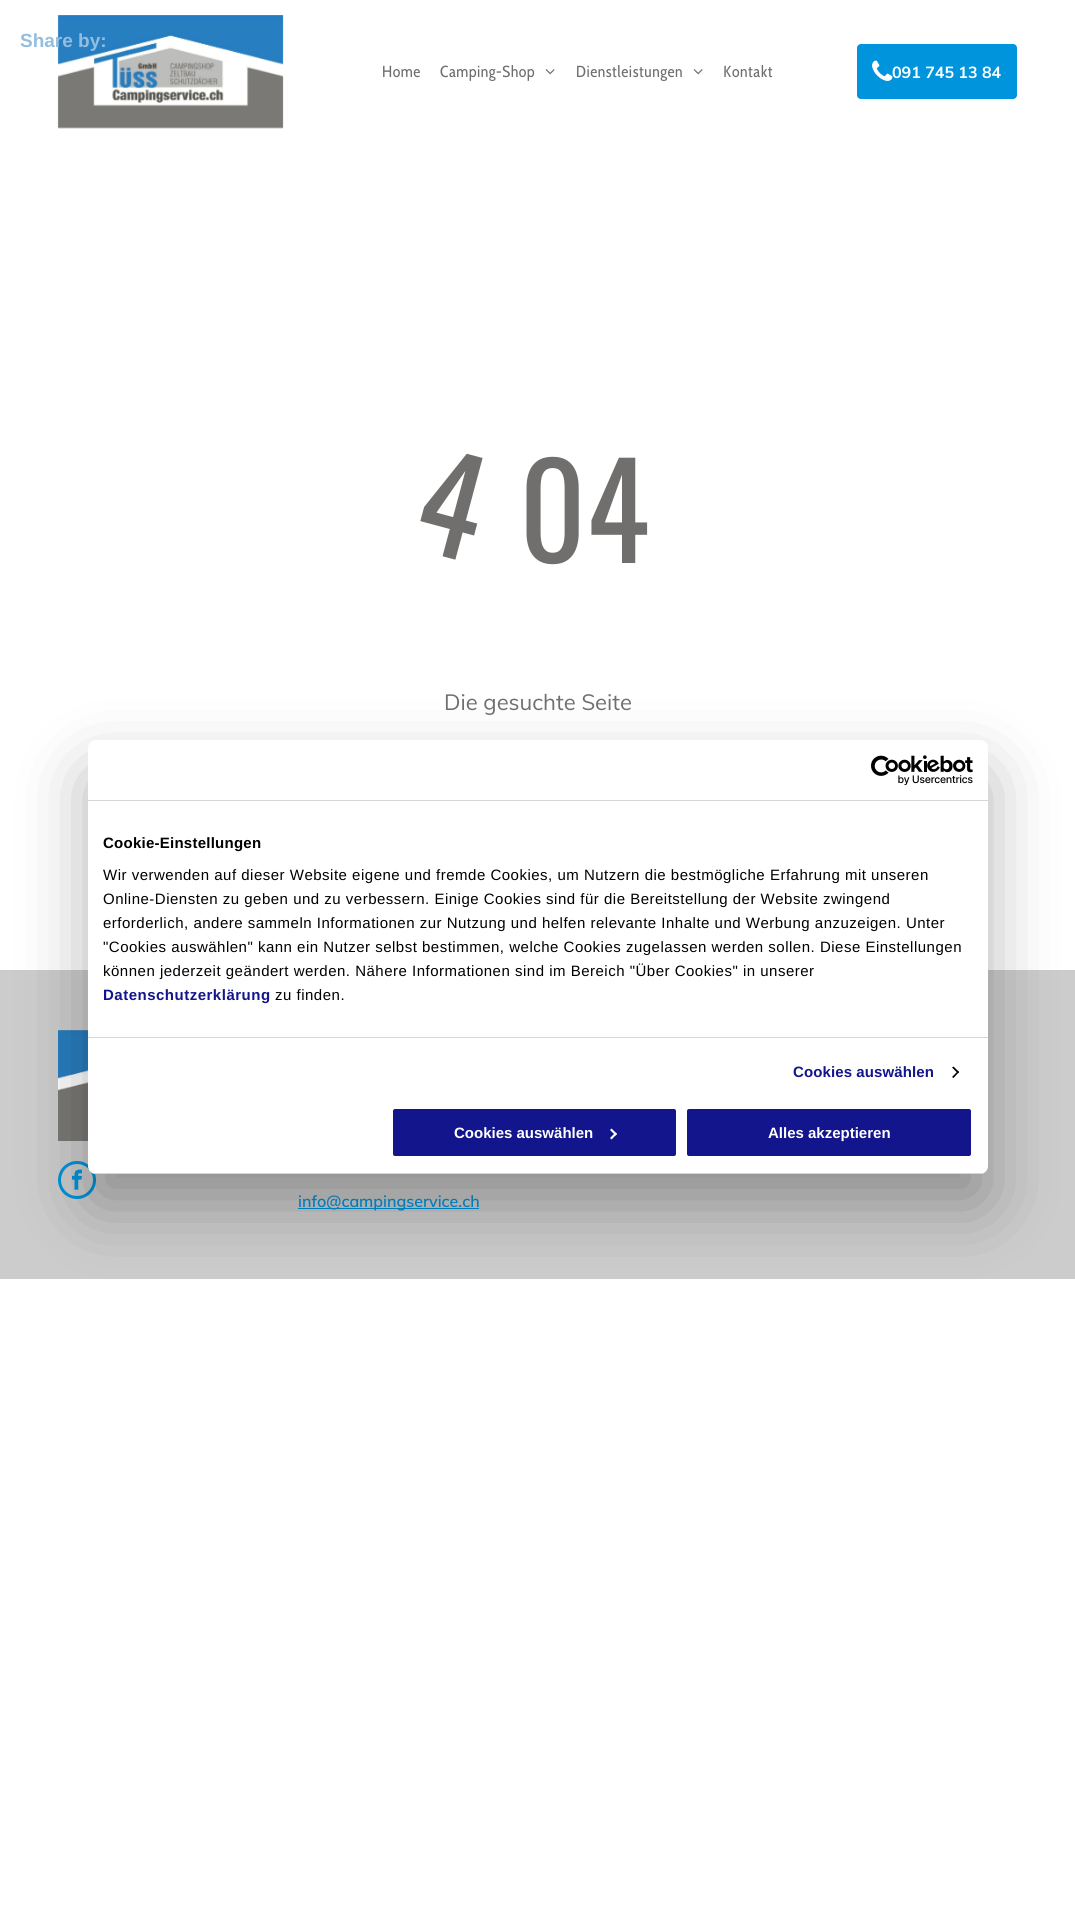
#include <cairo.h>
#include <math.h>
#include <stddef.h>

static cairo_t *ctx;

static void use_color(int r, int g, int b) {
    cairo_set_source_rgb(ctx, r / 255.0, g / 255.0, b / 255.0);
}

static void spaced_text(double x, double y, const char *s, double letter, double word) {
    cairo_move_to(ctx, x, y);
    while (*s) {
        char ch[5] = {0};
        int n = 0;
        do ch[n++] = *s++; while ((*s & 0xC0) == 0x80);
        cairo_show_text(ctx, ch);
        cairo_rel_move_to(ctx, letter + word * (*ch == ' '), 0);
    }
}

static void round_rect(double x, double y, double w, double h, double r) {
    cairo_new_sub_path(ctx);
    cairo_arc(ctx, x + w - r, y + h - r, r, 0, M_PI / 2);
    cairo_arc(ctx, x + r, y + h - r, r, M_PI / 2, M_PI);
    cairo_arc(ctx, x + r, y + r, r, M_PI, 1.5 * M_PI);
    cairo_arc(ctx, x + w - r, y + r, r, 1.5 * M_PI, 2 * M_PI);
    cairo_close_path(ctx);
}

static void shadow(double x, double y, double w, double h, double r, double blur, double alpha) {
    cairo_push_group_with_content(ctx, CAIRO_CONTENT_ALPHA);
    cairo_set_operator(ctx, CAIRO_OPERATOR_SOURCE);
    for (int i = 15; i >= -15 && fmin(w, h) + blur * i / 3 > 0; i -= 2) {
        double e = blur * i / 6;
        cairo_set_source_rgba(ctx, 0, 0, 0, alpha * erfc((i - 1) / 8.5) / 2);
        round_rect(x - e, y - e, w + 2 * e, h + 2 * e, fmax(0, fmin(r + e + blur * .6, fmin(w, h) / 2 + e)));
        cairo_fill(ctx);
    }
    cairo_pattern_t *soft = cairo_pop_group(ctx);
    cairo_mask(ctx, soft);
    cairo_pattern_destroy(soft);
}

static void picture(const char *path, double x, double y, double w, double h) {
    cairo_surface_t *image = cairo_image_surface_create_from_png(path);
    cairo_save(ctx);
    cairo_set_source_surface(ctx, image, x, y);
    cairo_rectangle(ctx, x, y, w, h);
    cairo_fill(ctx);
    cairo_restore(ctx);
    cairo_surface_destroy(image);
}

int main(void) {
    cairo_surface_t *surface = cairo_image_surface_create(CAIRO_FORMAT_RGB24, 1075, 1914);
    ctx = cairo_create(surface);
    cairo_font_options_t *options = cairo_font_options_create();
    cairo_font_options_set_hint_metrics(options, CAIRO_HINT_METRICS_OFF);
    cairo_font_options_set_hint_style(options, CAIRO_HINT_STYLE_NONE);
    cairo_set_font_options(ctx, options);
    cairo_set_miter_limit(ctx, 4);
    use_color(255, 255, 255);
    cairo_paint(ctx);
    picture("img1.png", 57, 15, 227, 114);
    cairo_select_font_face(ctx, "Liberation Sans", CAIRO_FONT_SLANT_NORMAL, CAIRO_FONT_WEIGHT_BOLD);
    cairo_set_font_size(ctx, 19);
    use_color(147, 190, 223);
    cairo_move_to(ctx, 20, 47);
    cairo_show_text(ctx, "Share by:");
    cairo_select_font_face(ctx, "Cabin Condensed", CAIRO_FONT_SLANT_NORMAL, CAIRO_FONT_WEIGHT_NORMAL);
    cairo_set_font_size(ctx, 16);
    use_color(113, 111, 110);
    spaced_text(382, 77, "Home", 0.5, 0);
    spaced_text(440, 77, "Camping-Shop", 0.5, 0);
    picture("img2.png", 545, 69, 10, 6);
    spaced_text(576, 77, "Dienstleistungen", 0.5, 0);
    picture("img2.png", 693, 69, 10, 6);
    spaced_text(723, 77, "Kontakt", 0.5, 0);
    use_color(0, 148, 221);
    round_rect(857, 44, 160, 55, 4);
    cairo_fill(ctx);
    cairo_select_font_face(ctx, "Muli", CAIRO_FONT_SLANT_NORMAL, CAIRO_FONT_WEIGHT_BOLD);
    use_color(255, 255, 255);
    cairo_move_to(ctx, 892, 78);
    cairo_show_text(ctx, "091 745 13 84");
    picture("img3.png", 872, 60, 21, 21);
    cairo_select_font_face(ctx, "Oswald", CAIRO_FONT_SLANT_NORMAL, CAIRO_FONT_WEIGHT_NORMAL);
    cairo_set_font_size(ctx, 130);
    use_color(113, 111, 110);
    cairo_save(ctx);
    cairo_translate(ctx, 408, 547);
    cairo_rotate(ctx, 15 * M_PI / 180);
    cairo_move_to(ctx, 0, 0);
    cairo_show_text(ctx, "4");
    cairo_restore(ctx);
    cairo_move_to(ctx, 519, 563);
    cairo_show_text(ctx, "04");
    cairo_select_font_face(ctx, "Muli", CAIRO_FONT_SLANT_NORMAL, CAIRO_FONT_WEIGHT_NORMAL);
    cairo_set_font_size(ctx, 22);
    cairo_move_to(ctx, 444, 710);
    cairo_show_text(ctx, "Die gesuchte Seite");
    use_color(204, 204, 204);
    cairo_rectangle(ctx, 0, 970, 1075, 309);
    cairo_fill(ctx);
    picture("img4.png", 58, 1030, 30, 111);
    cairo_arc(ctx, 77, 1180, 17.5, 0, 2 * M_PI);
    use_color(0, 148, 221);
    cairo_set_line_width(ctx, 3);
    cairo_stroke(ctx);
    picture("img5.png", 72, 1169, 10, 21);
    cairo_rectangle(ctx, 298, 1208, 181, 1);
    cairo_fill(ctx);
    cairo_select_font_face(ctx, "Muli SemiBold", CAIRO_FONT_SLANT_NORMAL, CAIRO_FONT_WEIGHT_NORMAL);
    cairo_set_font_size(ctx, 16);
    cairo_move_to(ctx, 298, 1207);
    cairo_show_text(ctx, "info@campingservice.ch");
    use_color(0, 0, 0);
    shadow(88, 772, 900, 434, 8, 34, 0.3);
    use_color(255, 255, 255);
    round_rect(88, 740, 900, 434, 8);
    cairo_fill(ctx);
    use_color(214, 214, 214);
    cairo_rectangle(ctx, 88, 800, 900, 1);
    cairo_fill(ctx);
    picture("img6.png", 871, 755, 102, 30);
    cairo_rectangle(ctx, 88, 1037, 900, 1);
    cairo_fill(ctx);
    cairo_select_font_face(ctx, "Liberation Sans", CAIRO_FONT_SLANT_NORMAL, CAIRO_FONT_WEIGHT_BOLD);
    cairo_set_font_size(ctx, 15);
    use_color(0, 0, 0);
    spaced_text(103, 848, "Cookie-Einstellungen", 0.25, 0);
    cairo_select_font_face(ctx, "Liberation Sans", CAIRO_FONT_SLANT_NORMAL, CAIRO_FONT_WEIGHT_NORMAL);
    spaced_text(103, 880, "Wir verwenden auf dieser Website eigene und fremde Cookies, um Nutzern die bestmögliche Erfahrung mit unseren", 0.5, 0);
    spaced_text(103, 904, "Online-Diensten zu geben und zu verbessern. Einige Cookies sind für die Bereitstellung der Website zwingend", 0.5, 0);
    spaced_text(103, 928, "erforderlich, andere sammeln Informationen zur Nutzung und helfen relevante Inhalte und Werbung anzuzeigen. Unter", 0.5, 0);
    spaced_text(103, 952, "\"Cookies auswählen\" kann ein Nutzer selbst bestimmen, welche Cookies zugelassen werden sollen. Diese Einstellungen", 0.5, 0);
    spaced_text(103, 976, "können jederzeit geändert werden. Nähere Informationen sind im Bereich \"Über Cookies\" in unserer", 0.5, 0);
    cairo_select_font_face(ctx, "Liberation Sans", CAIRO_FONT_SLANT_NORMAL, CAIRO_FONT_WEIGHT_BOLD);
    use_color(18, 21, 140);
    spaced_text(103, 1000, "Datenschutzerklärung", 0.5, 0);
    cairo_select_font_face(ctx, "Liberation Sans", CAIRO_FONT_SLANT_NORMAL, CAIRO_FONT_WEIGHT_NORMAL);
    use_color(0, 0, 0);
    spaced_text(275, 1000, "zu finden.", 0.5, 0);
    cairo_select_font_face(ctx, "Liberation Sans", CAIRO_FONT_SLANT_NORMAL, CAIRO_FONT_WEIGHT_BOLD);
    use_color(18, 21, 140);
    spaced_text(793, 1077, "Cookies auswählen", 0.1, 0);
    use_color(0, 0, 0);
    cairo_new_path(ctx);
    cairo_move_to(ctx, 953.5, 1066.5);
    cairo_line_to(ctx, 959, 1072);
    cairo_line_to(ctx, 958, 1073.5);
    cairo_line_to(ctx, 952, 1067.5);
    cairo_close_path(ctx);
    cairo_fill(ctx);
    cairo_new_path(ctx);
    cairo_move_to(ctx, 958, 1071);
    cairo_line_to(ctx, 959, 1072);
    cairo_line_to(ctx, 953.5, 1078);
    cairo_line_to(ctx, 952, 1077);
    cairo_close_path(ctx);
    cairo_fill(ctx);
    cairo_save(ctx);
    round_rect(88, 740, 900, 434, 8);
    cairo_clip(ctx);
    use_color(214, 214, 214);
    cairo_rectangle(ctx, 88, 1173, 900, 1);
    cairo_fill(ctx);
    cairo_restore(ctx);
    use_color(18, 21, 140);
    round_rect(392, 1108, 285, 49, 3);
    cairo_fill_preserve(ctx);
    use_color(255, 255, 255);
    cairo_set_line_width(ctx, 2);
    cairo_stroke(ctx);
    cairo_move_to(ctx, 454, 1138);
    cairo_show_text(ctx, "Cookies auswählen");
    cairo_new_path(ctx);
    cairo_move_to(ctx, 611.5, 1128.5);
    cairo_line_to(ctx, 617, 1134);
    cairo_line_to(ctx, 615.5, 1135.5);
    cairo_line_to(ctx, 610, 1130);
    cairo_close_path(ctx);
    cairo_fill(ctx);
    cairo_new_path(ctx);
    cairo_move_to(ctx, 615.5, 1132.5);
    cairo_line_to(ctx, 617, 1134);
    cairo_line_to(ctx, 611.5, 1139.5);
    cairo_line_to(ctx, 610, 1138);
    cairo_close_path(ctx);
    cairo_fill(ctx);
    use_color(18, 21, 140);
    round_rect(686, 1108, 286, 49, 3);
    cairo_fill_preserve(ctx);
    use_color(255, 255, 255);
    cairo_stroke(ctx);
    cairo_move_to(ctx, 768, 1138);
    cairo_show_text(ctx, "Alles akzeptieren");
    cairo_surface_write_to_png(surface, "result.png");
    cairo_font_options_destroy(options);
    cairo_destroy(ctx);
    cairo_surface_destroy(surface);
    return 0;
}
